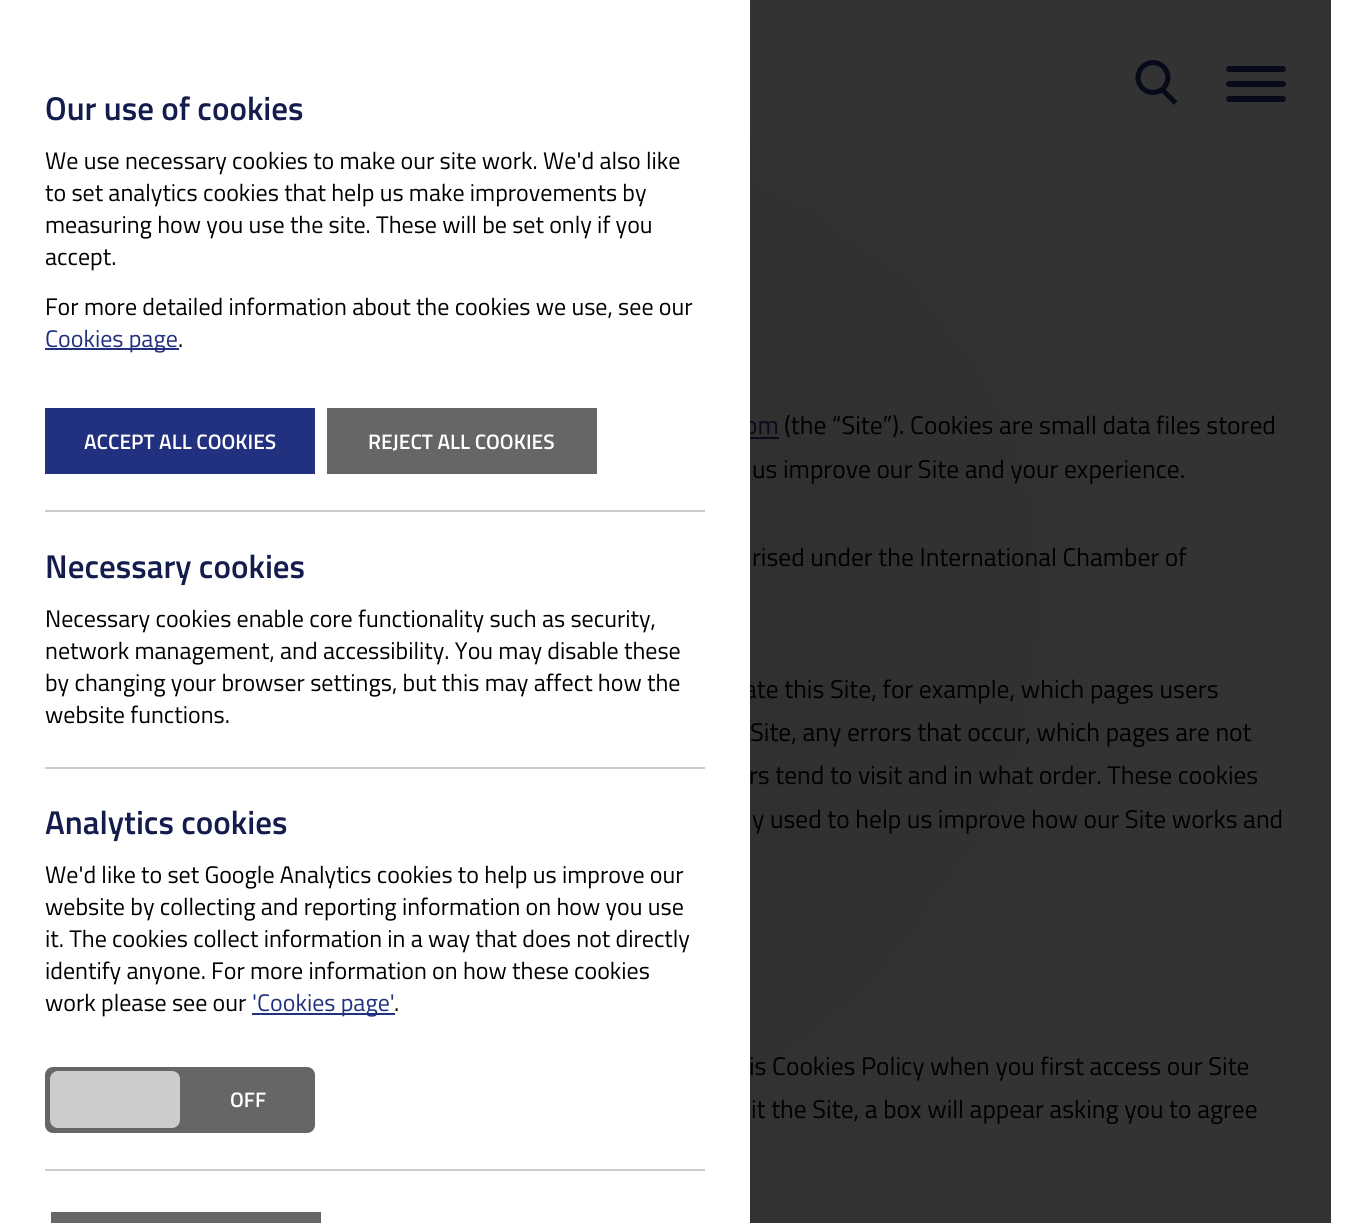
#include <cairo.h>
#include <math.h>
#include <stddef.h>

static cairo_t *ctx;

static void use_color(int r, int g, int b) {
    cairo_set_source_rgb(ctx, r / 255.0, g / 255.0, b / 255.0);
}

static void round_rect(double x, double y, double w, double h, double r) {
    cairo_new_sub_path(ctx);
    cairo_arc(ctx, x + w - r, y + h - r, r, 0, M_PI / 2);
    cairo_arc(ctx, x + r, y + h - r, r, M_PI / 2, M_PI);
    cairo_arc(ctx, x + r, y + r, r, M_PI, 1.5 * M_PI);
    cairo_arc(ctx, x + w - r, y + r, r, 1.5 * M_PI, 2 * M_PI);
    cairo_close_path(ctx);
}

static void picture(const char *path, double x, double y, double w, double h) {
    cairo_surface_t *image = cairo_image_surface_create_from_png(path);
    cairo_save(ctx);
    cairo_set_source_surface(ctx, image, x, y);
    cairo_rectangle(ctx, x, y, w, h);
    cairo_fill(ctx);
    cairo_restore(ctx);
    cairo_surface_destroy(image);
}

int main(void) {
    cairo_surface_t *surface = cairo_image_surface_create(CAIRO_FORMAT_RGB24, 1352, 1223);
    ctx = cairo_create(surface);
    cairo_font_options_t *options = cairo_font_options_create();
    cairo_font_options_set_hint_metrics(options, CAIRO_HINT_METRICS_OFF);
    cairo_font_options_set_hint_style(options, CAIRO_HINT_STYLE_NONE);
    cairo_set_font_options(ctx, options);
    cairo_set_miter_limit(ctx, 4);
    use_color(255, 255, 255);
    cairo_paint(ctx);
    use_color(51, 51, 51);
    cairo_rectangle(ctx, 1162, 0, 169, 1223);
    cairo_fill(ctx);
    picture("img2.png", 750, 0, 412, 1223);
    round_rect(23, 27, 1285, 116, 23);
    cairo_fill(ctx);
    picture("img1.png", 1135, 60, 43, 45);
    use_color(7, 10, 25);
    round_rect(1226, 81, 60, 6, 3);
    cairo_fill(ctx);
    round_rect(1226, 66, 60, 6, 3);
    cairo_fill(ctx);
    round_rect(1226, 96, 60, 6, 3);
    cairo_fill(ctx);
    cairo_select_font_face(ctx, "Titillium Web", CAIRO_FONT_SLANT_NORMAL, CAIRO_FONT_WEIGHT_NORMAL);
    cairo_set_font_size(ctx, 25.5);
    cairo_move_to(ctx, 744, 434);
    cairo_show_text(ctx, "om");
    use_color(0, 0, 0);
    cairo_move_to(ctx, 744, 698);
    cairo_show_text(ctx, "ate this Site, for example, which pages users");
    use_color(255, 255, 255);
    cairo_rectangle(ctx, 23, 27, 727, 672);
    cairo_fill(ctx);
    cairo_select_font_face(ctx, "Titillium Web SemiBold", CAIRO_FONT_SLANT_NORMAL, CAIRO_FONT_WEIGHT_NORMAL);
    cairo_set_font_size(ctx, 33);
    use_color(19, 28, 77);
    cairo_move_to(ctx, 45, 120);
    cairo_show_text(ctx, "Our use of cookies");
    cairo_select_font_face(ctx, "Titillium Web", CAIRO_FONT_SLANT_NORMAL, CAIRO_FONT_WEIGHT_NORMAL);
    cairo_set_font_size(ctx, 24);
    use_color(0, 0, 0);
    cairo_move_to(ctx, 45, 169);
    cairo_show_text(ctx, "We use necessary cookies to make our site work. We'd also like");
    cairo_move_to(ctx, 45, 201);
    cairo_show_text(ctx, "to set analytics cookies that help us make improvements by");
    cairo_move_to(ctx, 45, 233);
    cairo_show_text(ctx, "measuring how you use the site. These will be set only if you");
    cairo_move_to(ctx, 45, 265);
    cairo_show_text(ctx, "accept.");
    cairo_move_to(ctx, 45, 315);
    cairo_show_text(ctx, "For more detailed information about the cookies we use, see our");
    use_color(34, 49, 127);
    cairo_rectangle(ctx, 45, 348, 134, 2);
    cairo_fill(ctx);
    cairo_move_to(ctx, 45, 347);
    cairo_show_text(ctx, "Cookies page");
    use_color(0, 0, 0);
    cairo_move_to(ctx, 178, 347);
    cairo_show_text(ctx, ".");
    use_color(34, 49, 127);
    cairo_rectangle(ctx, 45, 408, 270, 66);
    cairo_fill(ctx);
    cairo_select_font_face(ctx, "Titillium Web SemiBold", CAIRO_FONT_SLANT_NORMAL, CAIRO_FONT_WEIGHT_NORMAL);
    cairo_set_font_size(ctx, 21);
    use_color(255, 255, 255);
    cairo_move_to(ctx, 84, 449);
    cairo_show_text(ctx, "ACCEPT ALL COOKIES");
    use_color(102, 102, 102);
    cairo_rectangle(ctx, 327, 408, 270, 66);
    cairo_fill(ctx);
    use_color(255, 255, 255);
    cairo_move_to(ctx, 368, 449);
    cairo_show_text(ctx, "REJECT ALL COOKIES");
    use_color(204, 204, 204);
    cairo_rectangle(ctx, 45, 510, 660, 2);
    cairo_fill(ctx);
    cairo_set_font_size(ctx, 33);
    use_color(19, 28, 77);
    cairo_move_to(ctx, 45, 578);
    cairo_show_text(ctx, "Necessary cookies");
    cairo_select_font_face(ctx, "Titillium Web", CAIRO_FONT_SLANT_NORMAL, CAIRO_FONT_WEIGHT_NORMAL);
    cairo_set_font_size(ctx, 24);
    use_color(0, 0, 0);
    cairo_move_to(ctx, 45, 627);
    cairo_show_text(ctx, "Necessary cookies enable core functionality such as security,");
    cairo_move_to(ctx, 45, 659);
    cairo_show_text(ctx, "network management, and accessibility. You may disable these");
    cairo_move_to(ctx, 45, 691);
    cairo_show_text(ctx, "by changing your browser settings, but this may affect how the");
    cairo_move_to(ctx, 45, 723);
    cairo_show_text(ctx, "website functions.");
    use_color(204, 204, 204);
    cairo_rectangle(ctx, 45, 767, 660, 2);
    cairo_fill(ctx);
    cairo_select_font_face(ctx, "Titillium Web SemiBold", CAIRO_FONT_SLANT_NORMAL, CAIRO_FONT_WEIGHT_NORMAL);
    cairo_set_font_size(ctx, 33);
    use_color(19, 28, 77);
    cairo_move_to(ctx, 45, 834);
    cairo_show_text(ctx, "Analytics cookies");
    cairo_select_font_face(ctx, "Titillium Web", CAIRO_FONT_SLANT_NORMAL, CAIRO_FONT_WEIGHT_NORMAL);
    cairo_set_font_size(ctx, 24);
    use_color(0, 0, 0);
    cairo_move_to(ctx, 45, 883);
    cairo_show_text(ctx, "We'd like to set Google Analytics cookies to help us improve our");
    cairo_move_to(ctx, 45, 915);
    cairo_show_text(ctx, "website by collecting and reporting information on how you use");
    cairo_move_to(ctx, 45, 947);
    cairo_show_text(ctx, "it. The cookies collect information in a way that does not directly");
    cairo_move_to(ctx, 45, 979);
    cairo_show_text(ctx, "identify anyone. For more information on how these cookies");
    cairo_move_to(ctx, 45, 1011);
    cairo_show_text(ctx, "work please see our");
    use_color(34, 49, 127);
    cairo_rectangle(ctx, 252, 1013, 143, 2);
    cairo_fill(ctx);
    cairo_move_to(ctx, 252, 1011);
    cairo_show_text(ctx, "'Cookies page'");
    use_color(0, 0, 0);
    cairo_move_to(ctx, 394, 1011);
    cairo_show_text(ctx, ".");
    use_color(102, 102, 102);
    round_rect(45, 1067, 270, 66, 8);
    cairo_fill(ctx);
    use_color(204, 204, 204);
    round_rect(50, 1071, 130, 57, 8);
    cairo_fill(ctx);
    cairo_select_font_face(ctx, "Titillium Web SemiBold", CAIRO_FONT_SLANT_NORMAL, CAIRO_FONT_WEIGHT_NORMAL);
    cairo_set_font_size(ctx, 21);
    use_color(255, 255, 255);
    cairo_move_to(ctx, 230, 1107);
    cairo_show_text(ctx, "OFF");
    use_color(204, 204, 204);
    cairo_rectangle(ctx, 45, 1169, 660, 2);
    cairo_fill(ctx);
    use_color(102, 102, 102);
    cairo_rectangle(ctx, 51, 1212, 270, 11);
    cairo_fill(ctx);
    use_color(7, 10, 25);
    cairo_rectangle(ctx, 750, 437, 29, 2);
    cairo_fill(ctx);
    cairo_select_font_face(ctx, "Titillium Web", CAIRO_FONT_SLANT_NORMAL, CAIRO_FONT_WEIGHT_NORMAL);
    cairo_set_font_size(ctx, 25.5);
    use_color(0, 0, 0);
    cairo_move_to(ctx, 784, 434);
    cairo_show_text(ctx, "(the “Site”). Cookies are small data files stored");
    cairo_move_to(ctx, 752, 478);
    cairo_show_text(ctx, "us improve our Site and your experience.");
    cairo_move_to(ctx, 752, 566);
    cairo_show_text(ctx, "rised under the International Chamber of");
    cairo_move_to(ctx, 750, 741);
    cairo_show_text(ctx, "Site, any errors that occur, which pages are not");
    cairo_move_to(ctx, 749, 784);
    cairo_show_text(ctx, "rs tend to visit and in what order. These cookies");
    cairo_move_to(ctx, 752, 828);
    cairo_show_text(ctx, "y used to help us improve how our Site works and");
    cairo_move_to(ctx, 749, 1075);
    cairo_show_text(ctx, "is Cookies Policy when you first access our Site");
    cairo_move_to(ctx, 751, 1118);
    cairo_show_text(ctx, "it the Site, a box will appear asking you to agree");
    cairo_surface_write_to_png(surface, "result.png");
    cairo_font_options_destroy(options);
    cairo_destroy(ctx);
    cairo_surface_destroy(surface);
    return 0;
}
